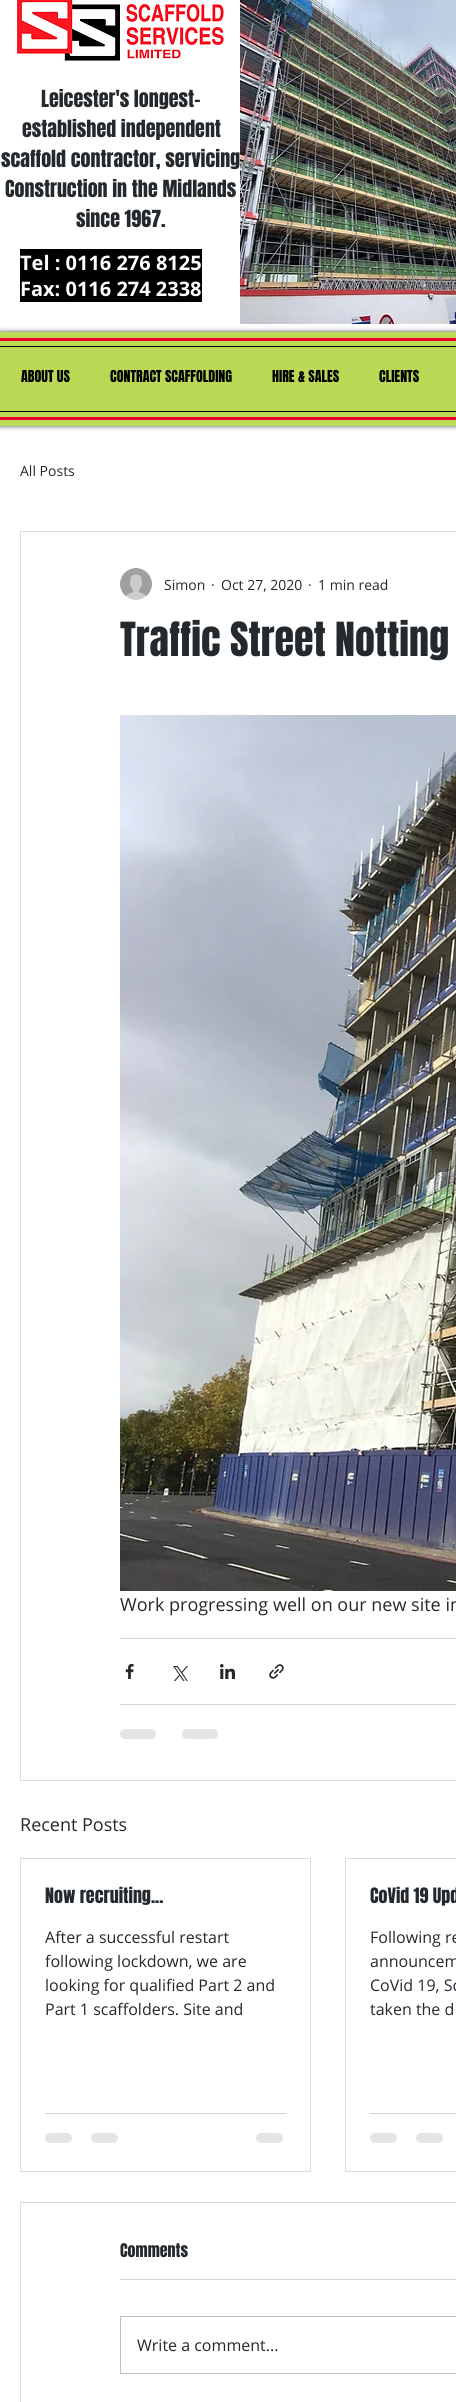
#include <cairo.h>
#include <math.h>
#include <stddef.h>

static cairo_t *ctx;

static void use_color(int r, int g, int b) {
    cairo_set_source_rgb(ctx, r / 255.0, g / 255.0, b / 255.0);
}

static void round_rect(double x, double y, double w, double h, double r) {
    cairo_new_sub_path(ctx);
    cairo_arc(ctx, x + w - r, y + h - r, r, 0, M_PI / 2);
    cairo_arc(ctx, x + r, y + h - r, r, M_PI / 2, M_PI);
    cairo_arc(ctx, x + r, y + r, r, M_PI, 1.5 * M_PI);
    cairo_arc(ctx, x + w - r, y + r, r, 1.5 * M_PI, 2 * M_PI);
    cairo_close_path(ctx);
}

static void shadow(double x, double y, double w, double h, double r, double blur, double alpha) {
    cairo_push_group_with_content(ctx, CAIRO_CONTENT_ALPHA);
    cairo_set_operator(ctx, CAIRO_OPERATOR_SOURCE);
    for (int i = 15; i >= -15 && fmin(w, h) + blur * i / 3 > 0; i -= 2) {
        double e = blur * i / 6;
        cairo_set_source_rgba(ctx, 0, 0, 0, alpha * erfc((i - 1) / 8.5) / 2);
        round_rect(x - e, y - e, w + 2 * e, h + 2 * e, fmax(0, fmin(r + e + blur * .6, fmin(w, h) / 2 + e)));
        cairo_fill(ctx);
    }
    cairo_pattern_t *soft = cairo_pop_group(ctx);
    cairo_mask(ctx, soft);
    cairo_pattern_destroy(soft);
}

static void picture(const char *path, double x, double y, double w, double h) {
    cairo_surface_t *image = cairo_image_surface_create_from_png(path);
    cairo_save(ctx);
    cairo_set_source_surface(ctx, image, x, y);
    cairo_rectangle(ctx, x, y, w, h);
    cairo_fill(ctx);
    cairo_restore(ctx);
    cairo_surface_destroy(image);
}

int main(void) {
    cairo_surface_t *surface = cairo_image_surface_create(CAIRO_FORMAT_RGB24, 456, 2402);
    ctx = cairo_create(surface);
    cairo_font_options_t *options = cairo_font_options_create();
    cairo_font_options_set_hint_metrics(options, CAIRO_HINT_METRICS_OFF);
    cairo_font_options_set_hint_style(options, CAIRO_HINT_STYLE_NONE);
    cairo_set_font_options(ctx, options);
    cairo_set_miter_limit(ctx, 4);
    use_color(255, 255, 255);
    cairo_paint(ctx);
    picture("img1.png", 17, 0, 207, 61);
    picture("img2.png", 240, 0, 216, 324);
    cairo_select_font_face(ctx, "Anton", CAIRO_FONT_SLANT_NORMAL, CAIRO_FONT_WEIGHT_NORMAL);
    cairo_set_font_size(ctx, 20);
    use_color(36, 41, 45);
    cairo_move_to(ctx, 41, 107);
    cairo_show_text(ctx, "Leicester's longest-");
    cairo_move_to(ctx, 22, 137);
    cairo_show_text(ctx, "established independent");
    cairo_move_to(ctx, 1, 167);
    cairo_show_text(ctx, "scaffold contractor, servicing");
    cairo_move_to(ctx, 5, 197);
    cairo_show_text(ctx, "Construction in the Midlands");
    cairo_move_to(ctx, 76, 227);
    cairo_show_text(ctx, "since 1967.");
    use_color(0, 0, 0);
    cairo_rectangle(ctx, 20, 249, 182, 53);
    cairo_fill(ctx);
    cairo_select_font_face(ctx, "Open Sans", CAIRO_FONT_SLANT_NORMAL, CAIRO_FONT_WEIGHT_BOLD);
    use_color(255, 255, 255);
    cairo_move_to(ctx, 20, 270);
    cairo_show_text(ctx, "Tel : 0116 276 8125");
    cairo_move_to(ctx, 20, 296);
    cairo_show_text(ctx, "Fax: 0116 274 2338");
    use_color(0, 0, 0);
    shadow(0, 332, 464, 94, 0, 2.5, 0.7);
    use_color(186, 218, 85);
    cairo_rectangle(ctx, 0, 332, 456, 94);
    cairo_fill(ctx);
    use_color(240, 0, 44);
    cairo_rectangle(ctx, 0, 338, 456, 3);
    cairo_fill(ctx);
    cairo_rectangle(ctx, 0, 417, 456, 3);
    cairo_fill(ctx);
    use_color(0, 0, 0);
    cairo_rectangle(ctx, 0, 346, 456, 1);
    cairo_fill(ctx);
    cairo_rectangle(ctx, 0, 411, 456, 1);
    cairo_fill(ctx);
    cairo_select_font_face(ctx, "Anton", CAIRO_FONT_SLANT_NORMAL, CAIRO_FONT_WEIGHT_NORMAL);
    cairo_set_font_size(ctx, 14);
    cairo_move_to(ctx, 21, 382);
    cairo_show_text(ctx, "ABOUT US");
    cairo_move_to(ctx, 110, 382);
    cairo_show_text(ctx, "CONTRACT SCAFFOLDING");
    cairo_move_to(ctx, 272, 382);
    cairo_show_text(ctx, "HIRE & SALES");
    cairo_move_to(ctx, 379, 382);
    cairo_show_text(ctx, "CLIENTS");
    cairo_select_font_face(ctx, "Open Sans", CAIRO_FONT_SLANT_NORMAL, CAIRO_FONT_WEIGHT_NORMAL);
    use_color(36, 41, 45);
    cairo_move_to(ctx, 20, 476);
    cairo_show_text(ctx, "All Posts");
    cairo_rectangle(ctx, 20.5, 531.5, 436, 1249);
    use_color(215, 220, 225);
    cairo_set_line_width(ctx, 1);
    cairo_stroke(ctx);
    picture("img3.png", 120, 568, 32, 32);
    use_color(36, 41, 45);
    cairo_move_to(ctx, 164, 590);
    cairo_show_text(ctx, "Simon");
    cairo_move_to(ctx, 211, 590);
    cairo_show_text(ctx, "·");
    cairo_move_to(ctx, 221, 590);
    cairo_show_text(ctx, "Oct 27, 2020");
    cairo_move_to(ctx, 308, 590);
    cairo_show_text(ctx, "·");
    cairo_move_to(ctx, 318, 590);
    cairo_show_text(ctx, "1 min read");
    cairo_select_font_face(ctx, "Anton", CAIRO_FONT_SLANT_NORMAL, CAIRO_FONT_WEIGHT_NORMAL);
    cairo_set_font_size(ctx, 40);
    cairo_move_to(ctx, 120, 656);
    cairo_show_text(ctx, "Traffic Street Notting");
    picture("img4.png", 120, 715, 336, 876);
    cairo_select_font_face(ctx, "Open Sans", CAIRO_FONT_SLANT_NORMAL, CAIRO_FONT_WEIGHT_NORMAL);
    cairo_set_font_size(ctx, 18);
    cairo_move_to(ctx, 120, 1611);
    cairo_show_text(ctx, "Work progressing well on our new site in");
    use_color(211, 212, 213);
    cairo_rectangle(ctx, 120, 1638, 336, 1);
    cairo_fill(ctx);
    picture("img5.png", 125, 1664, 9, 15);
    picture("img6.png", 173, 1666, 15, 15);
    picture("img7.png", 220, 1664, 15, 15);
    picture("img8.png", 269, 1664, 15, 15);
    cairo_rectangle(ctx, 120, 1704, 336, 1);
    cairo_fill(ctx);
    use_color(229, 229, 230);
    round_rect(120, 1729, 36, 10, 5);
    cairo_fill(ctx);
    round_rect(182, 1729, 36, 10, 5);
    cairo_fill(ctx);
    use_color(36, 41, 45);
    cairo_move_to(ctx, 20, 1831);
    cairo_show_text(ctx, "Recent Posts");
    cairo_rectangle(ctx, 20.5, 1858.5, 290, 313);
    use_color(215, 220, 225);
    cairo_stroke(ctx);
    cairo_select_font_face(ctx, "Anton", CAIRO_FONT_SLANT_NORMAL, CAIRO_FONT_WEIGHT_NORMAL);
    use_color(36, 41, 45);
    cairo_move_to(ctx, 45, 1903);
    cairo_show_text(ctx, "Now recruiting...");
    cairo_select_font_face(ctx, "Open Sans", CAIRO_FONT_SLANT_NORMAL, CAIRO_FONT_WEIGHT_NORMAL);
    cairo_set_font_size(ctx, 16);
    cairo_move_to(ctx, 45, 1943);
    cairo_show_text(ctx, "After a successful restart");
    cairo_move_to(ctx, 45, 1967);
    cairo_show_text(ctx, "following lockdown, we are");
    cairo_move_to(ctx, 45, 1991);
    cairo_show_text(ctx, "looking for qualified Part 2 and");
    cairo_move_to(ctx, 45, 2015);
    cairo_show_text(ctx, "Part 1 scaffolders. Site and");
    use_color(211, 212, 213);
    cairo_rectangle(ctx, 45, 2113, 241, 1);
    cairo_fill(ctx);
    use_color(229, 229, 230);
    round_rect(45, 2133, 27, 10, 5);
    cairo_fill(ctx);
    round_rect(91, 2133, 27, 10, 5);
    cairo_fill(ctx);
    round_rect(256, 2133, 27, 10, 5);
    cairo_fill(ctx);
    cairo_rectangle(ctx, 345.5, 1858.5, 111, 313);
    use_color(215, 220, 225);
    cairo_stroke(ctx);
    cairo_select_font_face(ctx, "Anton", CAIRO_FONT_SLANT_NORMAL, CAIRO_FONT_WEIGHT_NORMAL);
    cairo_set_font_size(ctx, 18);
    use_color(36, 41, 45);
    cairo_move_to(ctx, 370, 1903);
    cairo_show_text(ctx, "CoVid 19 Upd");
    cairo_select_font_face(ctx, "Open Sans", CAIRO_FONT_SLANT_NORMAL, CAIRO_FONT_WEIGHT_NORMAL);
    cairo_set_font_size(ctx, 16);
    cairo_move_to(ctx, 370, 1943);
    cairo_show_text(ctx, "Following re");
    cairo_move_to(ctx, 370, 1967);
    cairo_show_text(ctx, "announcem");
    cairo_move_to(ctx, 370, 1991);
    cairo_show_text(ctx, "CoVid 19, Sc");
    cairo_move_to(ctx, 370, 2015);
    cairo_show_text(ctx, "taken the d");
    use_color(211, 212, 213);
    cairo_rectangle(ctx, 370, 2113, 86, 1);
    cairo_fill(ctx);
    use_color(229, 229, 230);
    round_rect(370, 2133, 27, 10, 5);
    cairo_fill(ctx);
    round_rect(416, 2133, 27, 10, 5);
    cairo_fill(ctx);
    cairo_rectangle(ctx, 20.5, 2202.5, 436, 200);
    use_color(215, 220, 225);
    cairo_stroke(ctx);
    cairo_select_font_face(ctx, "Anton", CAIRO_FONT_SLANT_NORMAL, CAIRO_FONT_WEIGHT_NORMAL);
    use_color(36, 41, 45);
    cairo_move_to(ctx, 120, 2257);
    cairo_show_text(ctx, "Comments");
    use_color(211, 212, 213);
    cairo_rectangle(ctx, 120, 2279, 336, 1);
    cairo_fill(ctx);
    cairo_rectangle(ctx, 120.5, 2316.5, 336, 57);
    use_color(189, 191, 192);
    cairo_stroke(ctx);
    cairo_select_font_face(ctx, "Open Sans", CAIRO_FONT_SLANT_NORMAL, CAIRO_FONT_WEIGHT_NORMAL);
    use_color(36, 41, 45);
    cairo_move_to(ctx, 137, 2351);
    cairo_show_text(ctx, "Write a comment...");
    cairo_surface_write_to_png(surface, "result.png");
    cairo_font_options_destroy(options);
    cairo_destroy(ctx);
    cairo_surface_destroy(surface);
    return 0;
}
